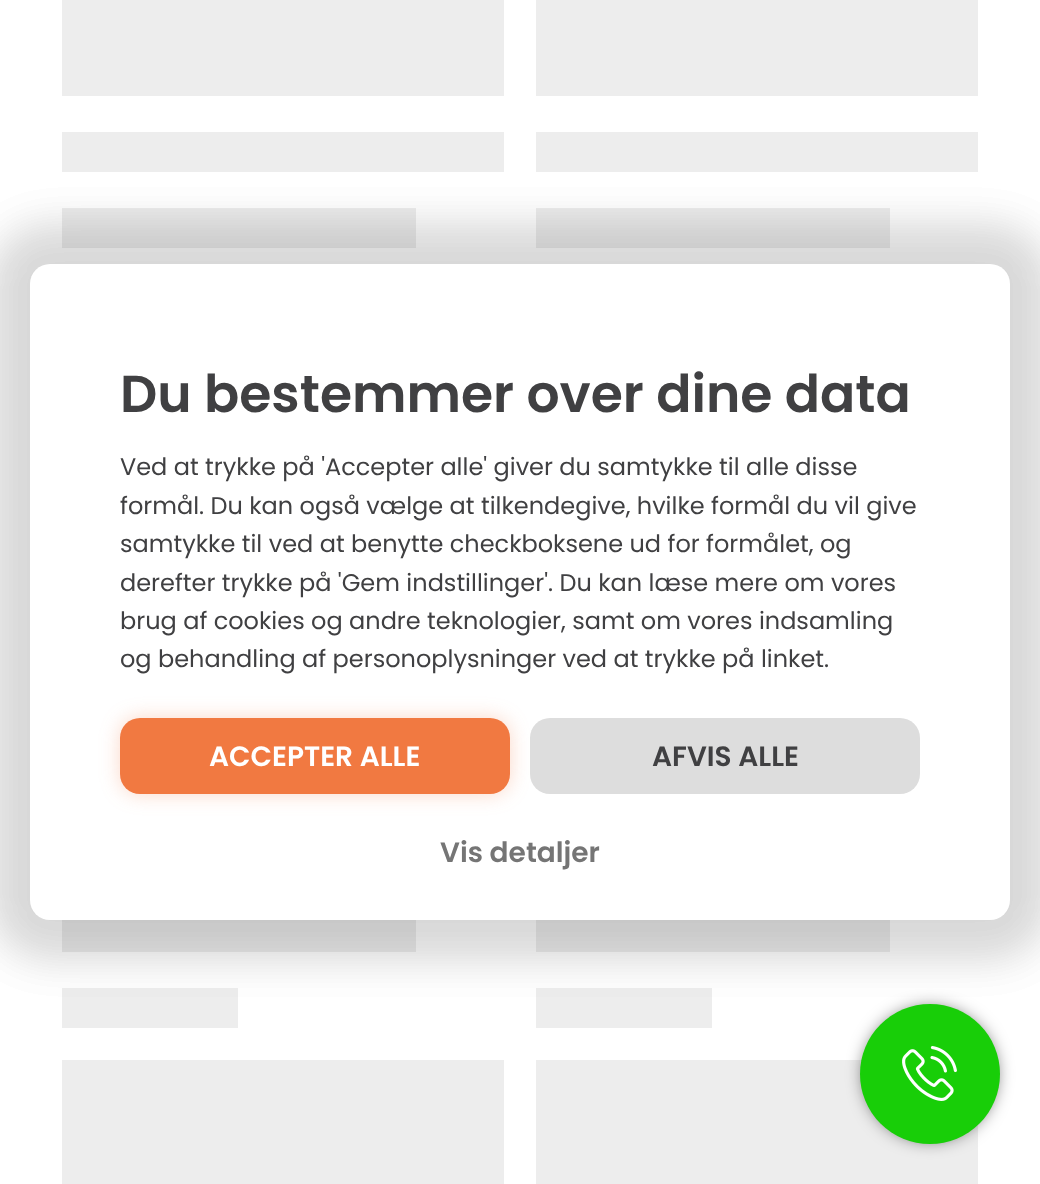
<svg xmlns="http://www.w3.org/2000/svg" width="1040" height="1184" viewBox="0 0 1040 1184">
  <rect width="100%" height="100%" fill="rgb(255,255,255)"/>
  <rect x="62" y="0" width="442" height="96" fill="rgb(237,237,237)"/>
  <rect x="62" y="132" width="442" height="40" fill="rgb(237,237,237)"/>
  <rect x="62" y="208" width="354" height="40" fill="rgb(237,237,237)"/>
  <rect x="536" y="0" width="442" height="96" fill="rgb(237,237,237)"/>
  <rect x="536" y="132" width="442" height="40" fill="rgb(237,237,237)"/>
  <rect x="536" y="208" width="354" height="40" fill="rgb(237,237,237)"/>
  <rect x="62" y="920" width="354" height="32" fill="rgb(237,237,237)"/>
  <rect x="62" y="988" width="176" height="40" fill="rgb(237,237,237)"/>
  <rect x="536" y="920" width="354" height="32" fill="rgb(237,237,237)"/>
  <rect x="536" y="988" width="176" height="40" fill="rgb(237,237,237)"/>
  <rect x="62" y="1060" width="442" height="124" fill="rgb(237,237,237)"/>
  <rect x="536" y="1060" width="442" height="124" fill="rgb(237,237,237)"/>
  <rect x="868" y="1012" width="124" height="124" rx="62" fill="rgb(0,0,0)" filter="blur(10px)"/>
  <circle cx="930" cy="1074" r="70" fill="rgb(24,206,8)"/>
  <rect x="-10" y="224" width="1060" height="736" rx="60" fill="rgba(0,0,0,0.08)" filter="blur(20px)"/>
  <rect x="-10" y="224" width="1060" height="736" rx="60" fill="rgba(0,0,0,0.08)" filter="blur(20px)"/>
  <rect x="30" y="264" width="980" height="656" rx="20" fill="rgb(255,255,255)"/>
  <text x="120" y="412" font-family="Poppins" font-size="52" font-weight="600" fill="rgb(64,64,66)">Du bestemmer over dine data</text>
  <g font-family="Poppins" font-size="24" fill="rgb(64,64,66)">
    <text>
      <tspan x="120" y="475">Ved at trykke på 'Accepter alle' giver du samtykke til alle disse</tspan>
      <tspan x="120" y="514">formål. Du kan også vælge at tilkendegive, hvilke formål du vil give</tspan>
      <tspan x="120" y="552">samtykke til ved at benytte checkboksene ud for formålet, og</tspan>
      <tspan x="120" y="591">derefter trykke på 'Gem indstillinger'. Du kan læse mere om vores</tspan>
      <tspan x="120" y="629">brug af cookies og andre teknologier, samt om vores indsamling</tspan>
      <tspan x="120" y="667">og behandling af personoplysninger ved at trykke på linket.</tspan>
    </text>
  </g>
  <rect x="120" y="718" width="390" height="76" rx="20" fill="rgba(241,121,65,0.29)" filter="blur(10px)"/>
  <rect x="120" y="718" width="390" height="76" rx="20" fill="rgb(241,121,65)"/>
  <text x="209" y="766" font-family="Poppins" font-size="28" font-weight="600" fill="rgb(255,255,255)">ACCEPTER ALLE</text>
  <rect x="530" y="718" width="390" height="76" rx="20" fill="rgb(221,221,221)"/>
  <text x="652" y="766" font-family="Poppins" font-size="28" font-weight="600" fill="rgb(64,64,66)">AFVIS ALLE</text>
  <text x="440" y="862" font-family="Poppins" font-size="28" font-weight="600" fill="rgb(117,117,117)">Vis detaljer</text>
  <image x="902" y="1046" width="55" height="55" href="pic1.png"/>
</svg>
